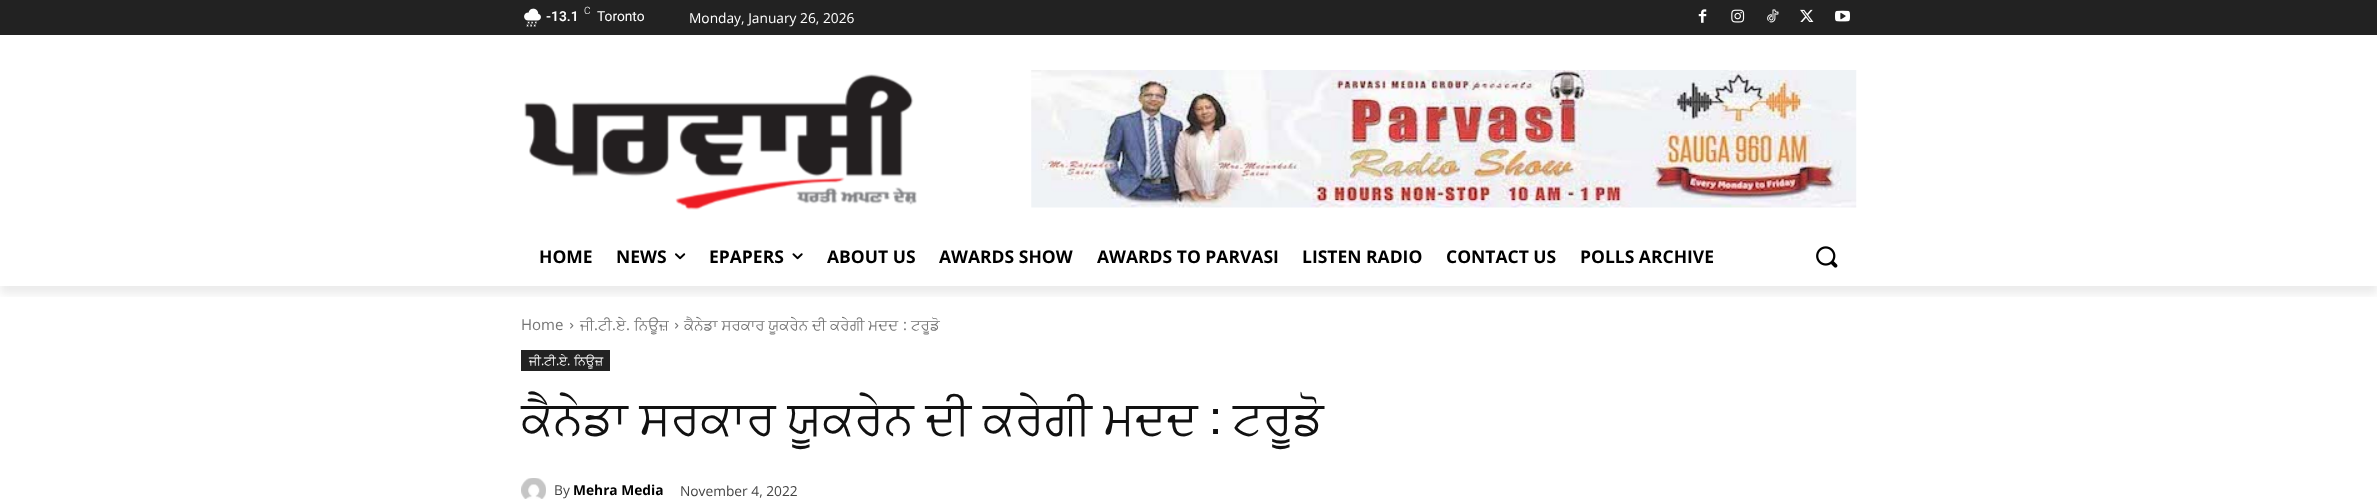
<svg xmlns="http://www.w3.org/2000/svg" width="2377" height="499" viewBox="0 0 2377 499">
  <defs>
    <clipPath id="clip1"><rect x="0" y="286" width="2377" height="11"/></clipPath>
  </defs>
  <rect width="100%" height="100%" fill="rgb(255,255,255)"/>
  <rect x="0" y="0" width="2377" height="35" fill="rgb(34,34,34)"/>
  <image x="524" y="8" width="17" height="19" href="pic1.png"/>
  <image x="1698" y="9" width="9" height="14" href="pic2.png"/>
  <image x="1731" y="9" width="14" height="14" href="pic3.png"/>
  <image x="1767" y="9" width="12" height="14" href="pic4.png"/>
  <image x="1800" y="9" width="14" height="13" href="pic5.png"/>
  <image x="1835" y="10" width="15" height="12" href="pic6.png"/>
  <image x="524" y="74" width="393" height="136" href="pic7.png"/>
  <image x="1031" y="70" width="826" height="138" href="pic8.png"/>
  <g clip-path="url(#clip1)">
    <rect x="0" y="8" width="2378" height="286" fill="rgba(0,0,0,0.08)" filter="blur(5px)"/>
  </g>
  <text x="546" y="21" font-family="Roboto" font-size="13.75" font-weight="600" fill="rgb(255,255,255)">-13.1</text>
  <text x="584" y="14" font-family="Roboto" font-size="10" font-weight="300" fill="rgb(255,255,255)">C</text>
  <text x="597" y="21" font-family="Roboto" font-size="13.75" fill="rgb(255,255,255)">Toronto</text>
  <text x="689" y="23" font-family="Open Sans" font-size="13.75" fill="rgb(255,255,255)">Monday, January 26, 2026</text>
  <g font-family="Open Sans" font-size="17.5" font-weight="bold" fill="rgb(0,0,0)">
    <text x="539" y="263">HOME</text>
    <text x="616" y="263">NEWS</text>
  </g>
  <image x="675" y="253" width="11" height="7" href="pic9.png"/>
  <text x="709" y="263" font-family="Open Sans" font-size="17.5" font-weight="bold" fill="rgb(0,0,0)">EPAPERS</text>
  <image x="792" y="253" width="11" height="7" href="pic10.png"/>
  <g font-family="Open Sans" font-size="17.5" font-weight="bold" fill="rgb(0,0,0)">
    <text x="827" y="263">ABOUT US</text>
    <text x="939" y="263">AWARDS SHOW</text>
    <text x="1097" y="263">AWARDS TO PARVASI</text>
    <text x="1302" y="263">LISTEN RADIO</text>
    <text x="1446" y="263">CONTACT US</text>
    <text x="1580" y="263">POLLS ARCHIVE</text>
  </g>
  <image x="1816" y="246" width="22" height="22" href="pic11.png"/>
  <text x="521" y="330" font-family="Open Sans" font-size="15" fill="rgb(116,116,116)">Home</text>
  <image x="570" y="322" width="4" height="7" href="pic12.png"/>
  <text x="580" y="330" font-family="FreeSans" font-size="15" fill="rgb(116,116,116)">ਜੀ</text>
  <text x="594" y="330" font-family="Open Sans" font-size="15" fill="rgb(116,116,116)">.</text>
  <g font-family="FreeSans" font-size="15" fill="rgb(116,116,116)">
    <text x="598" y="330">ਟੀ ਏ</text>
    <text x="634" y="330">ਨਿਊਜ਼</text>
  </g>
  <image x="675" y="322" width="4" height="7" href="pic12.png"/>
  <text x="684" y="330" font-family="FreeSans" font-size="15" fill="rgb(116,116,116)">ਕੈਨੇਡਾ ਸਰਕਾਰ ਯੂਕਰੇਨ ਦੀ ਕਰੇਗੀ ਮਦਦ</text>
  <text x="903" y="330" font-family="Open Sans" font-size="15" fill="rgb(116,116,116)">:</text>
  <text x="911" y="330" font-family="FreeSans" font-size="15" fill="rgb(116,116,116)">ਟਰੂਡੋ</text>
  <g font-family="Open Sans" font-size="15" fill="rgb(116,116,116)">
    <text x="612" y="330">.</text>
    <text x="626" y="330">.</text>
  </g>
  <rect x="521" y="350" width="89" height="21" fill="rgb(34,34,34)"/>
  <text x="529" y="365" font-family="FreeSans" font-size="12.5" fill="rgb(255,255,255)">ਜੀ</text>
  <text x="541" y="365" font-family="Open Sans" font-size="12.5" fill="rgb(255,255,255)">.</text>
  <text x="544" y="365" font-family="FreeSans" font-size="12.5" fill="rgb(255,255,255)">ਟੀ</text>
  <text x="556" y="365" font-family="Open Sans" font-size="12.5" fill="rgb(255,255,255)">.</text>
  <g font-family="FreeSans" font-size="12.5" fill="rgb(255,255,255)">
    <text x="559" y="365">ਏ</text>
    <text x="574" y="365">ਨਿਊਜ਼</text>
  </g>
  <text x="567" y="365" font-family="Open Sans" font-size="12.5" fill="rgb(255,255,255)">.</text>
  <text x="521" y="434" word-spacing="-0.25" font-family="FreeSans" font-size="47.5" fill="rgb(17,17,17)">ਕੈਨੇਡਾ ਸਰਕਾਰ ਯੂਕਰੇਨ ਦੀ ਕਰੇਗੀ ਮਦਦ : ਟਰੂਡੋ</text>
  <image x="521" y="478" width="25" height="21" href="pic13.png"/>
  <text x="554" y="495" font-family="Open Sans" font-size="13.75" fill="rgb(68,68,68)">By</text>
  <text x="573" y="495" font-family="Open Sans" font-size="13.75" font-weight="bold" fill="rgb(0,0,0)">Mehra Media</text>
  <text x="680" y="496" font-family="Open Sans" font-size="13.75" fill="rgb(68,68,68)">November 4, 2022</text>
</svg>
